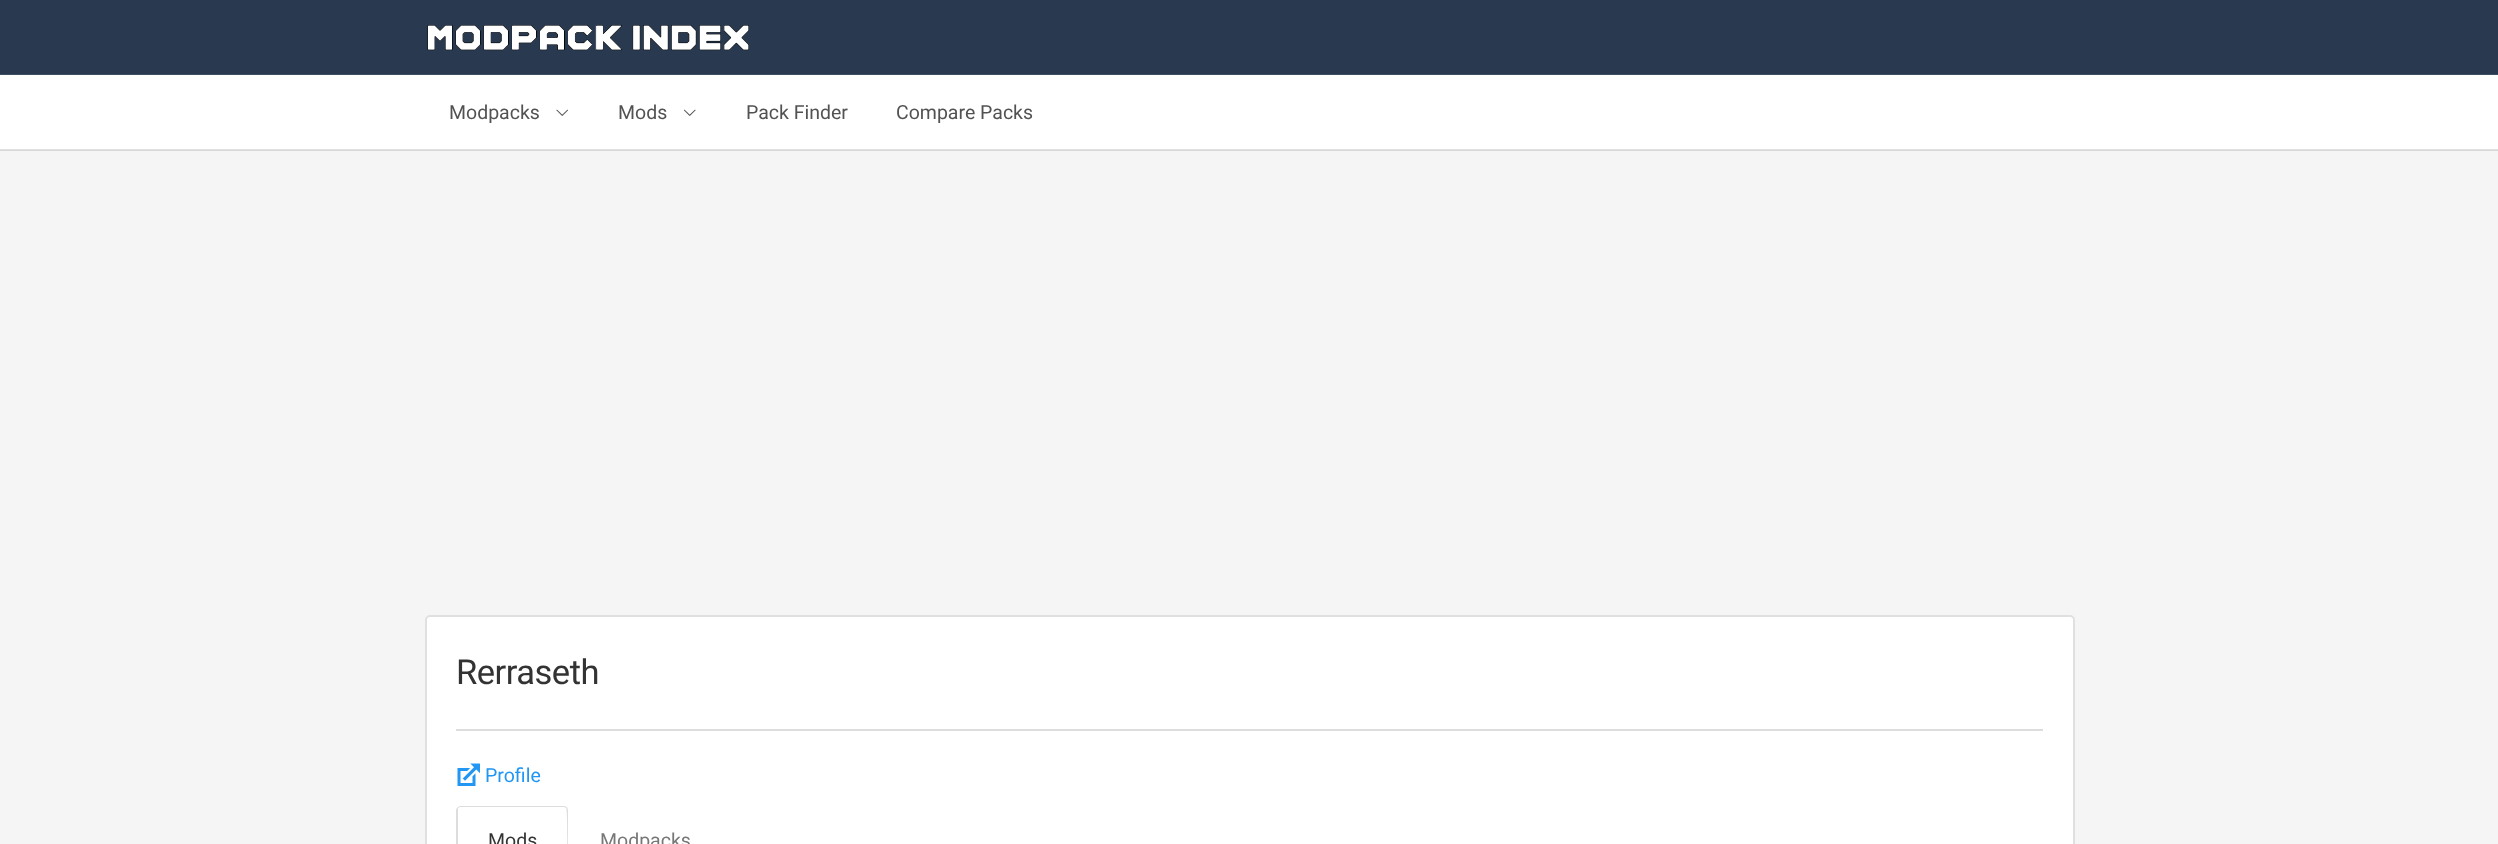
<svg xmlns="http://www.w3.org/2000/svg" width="2498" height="844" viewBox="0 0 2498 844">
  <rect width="100%" height="100%" fill="rgb(245,245,245)"/>
  <rect x="0" y="150" width="2498" height="1" fill="rgb(216,216,216)"/>
  <rect x="0" y="0" width="2498" height="74" fill="rgb(41,58,80)"/>
  <rect x="0" y="74" width="2498" height="1" fill="rgb(62,78,98)"/>
  <image x="427" y="25" width="322" height="26" href="pic1.png"/>
  <rect x="0" y="75" width="2498" height="74" fill="rgb(255,255,255)"/>
  <rect x="0" y="149" width="2498" height="1" fill="rgb(224,224,224)"/>
  <text x="449" y="119" font-family="Roboto" font-size="19.5" fill="rgb(82,82,82)">Modpacks</text>
  <image x="556" y="109" width="12" height="7" href="pic2.png"/>
  <text x="618" y="119" font-family="Roboto" font-size="19.5" fill="rgb(82,82,82)">Mods</text>
  <image x="683" y="109" width="13" height="7" href="pic3.png"/>
  <g font-family="Roboto" font-size="19.5" fill="rgb(82,82,82)">
    <text x="746" y="119">Pack Finder</text>
    <text x="896" y="119">Compare Packs</text>
  </g>
  <rect x="425" y="615" width="1650" height="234" rx="5" fill="rgb(255,255,255)"/>
  <rect x="426" y="616" width="1648" height="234" rx="4" fill="none" stroke="rgba(0,0,0,0.12)" stroke-width="2"/>
  <text x="456" y="684" font-family="Roboto" font-size="34.5" letter-spacing="-0.5" fill="rgb(51,51,51)">Rerraseth</text>
  <rect x="456" y="729" width="1587" height="2" fill="rgb(221,221,221)"/>
  <image x="457" y="763" width="23" height="23" href="pic4.png"/>
  <text x="485" y="782" font-family="Roboto" font-size="19.5" fill="rgb(33,150,243)">Profile</text>
  <path d="M460 806L458 807V808L460 807H564L566 808L567 807L564 806Z" fill="rgb(221,221,221)"/>
  <path d="M568 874V810L567 807L566 808C568 809 567 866 567 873Z" fill="rgb(221,221,221)"/>
  <path d="M456 810V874L458 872V810V808V807C457 808 456 809 456 810Z" fill="rgb(221,221,221)"/>
  <text x="488" y="847" font-family="Roboto" font-size="19.5" fill="rgb(51,51,51)">Mods</text>
  <text x="600" y="847" font-family="Roboto" font-size="19.5" fill="rgb(119,119,119)">Modpacks</text>
</svg>
